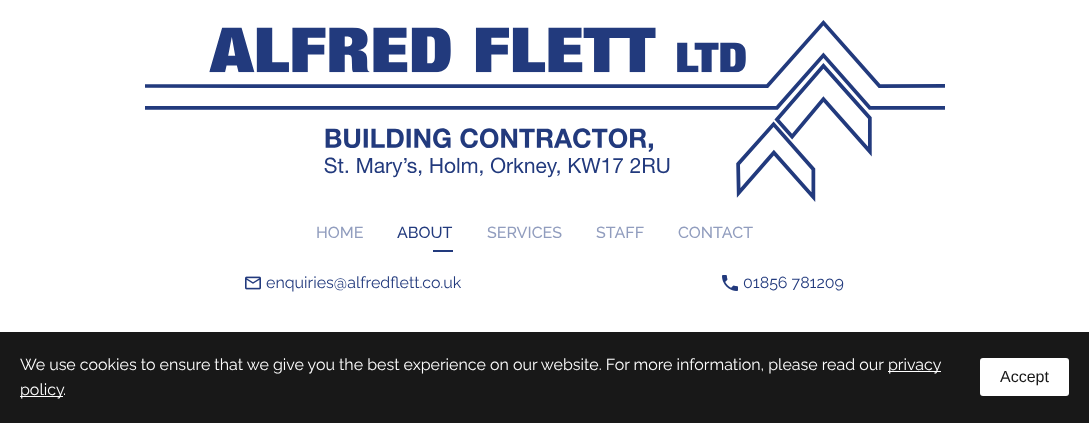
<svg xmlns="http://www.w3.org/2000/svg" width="1089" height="423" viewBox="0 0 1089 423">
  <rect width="100%" height="100%" fill="rgb(255,255,255)"/>
  <image x="145" y="20" width="800" height="182" href="pic1.png"/>
  <text x="316" y="238" font-family="Raleway" font-size="16" font-weight="500" fill="rgb(145,157,190)">HOME</text>
  <text x="397" y="238" font-family="Raleway" font-size="16" font-weight="500" fill="rgb(34,58,125)">ABOUT</text>
  <rect x="433" y="250" width="20" height="2" fill="rgb(34,58,125)"/>
  <g font-family="Raleway" font-size="16" font-weight="500" fill="rgb(145,157,190)">
    <text x="487" y="238">SERVICES</text>
    <text x="596" y="238">STAFF</text>
    <text x="678" y="238">CONTACT</text>
  </g>
  <image x="245" y="276" width="16" height="14" href="pic2.png"/>
  <text x="266" y="288" font-family="Raleway" font-size="16" fill="rgb(34,58,125)">enquiries@alfredflett.co.uk</text>
  <image x="722" y="275" width="16" height="16" href="pic3.png"/>
  <text x="743" y="288" font-family="Raleway" font-size="16" fill="rgb(34,58,125)">01856 781209</text>
  <rect x="0" y="332" width="1089" height="91" fill="rgb(24,24,24)"/>
  <text x="20" y="370" font-family="Raleway" font-size="16" fill="rgb(255,255,255)">We use cookies to ensure that we give you the best experience on our website. For more information, please read our</text>
  <rect x="888" y="371" width="53" height="1" fill="rgb(255,255,255)"/>
  <text x="888" y="370" font-family="Raleway" font-size="16" fill="rgb(255,255,255)">privacy</text>
  <rect x="20" y="396" width="43" height="1" fill="rgb(255,255,255)"/>
  <g font-family="Raleway" font-size="16" fill="rgb(255,255,255)">
    <text x="20" y="395">policy</text>
    <text x="63" y="395">.</text>
  </g>
  <rect x="980" y="358" width="89" height="38" rx="3" fill="rgb(255,255,255)"/>
  <text x="1000" y="382" font-family="Liberation Sans" font-size="16" fill="rgb(24,24,24)">Accept</text>
</svg>
